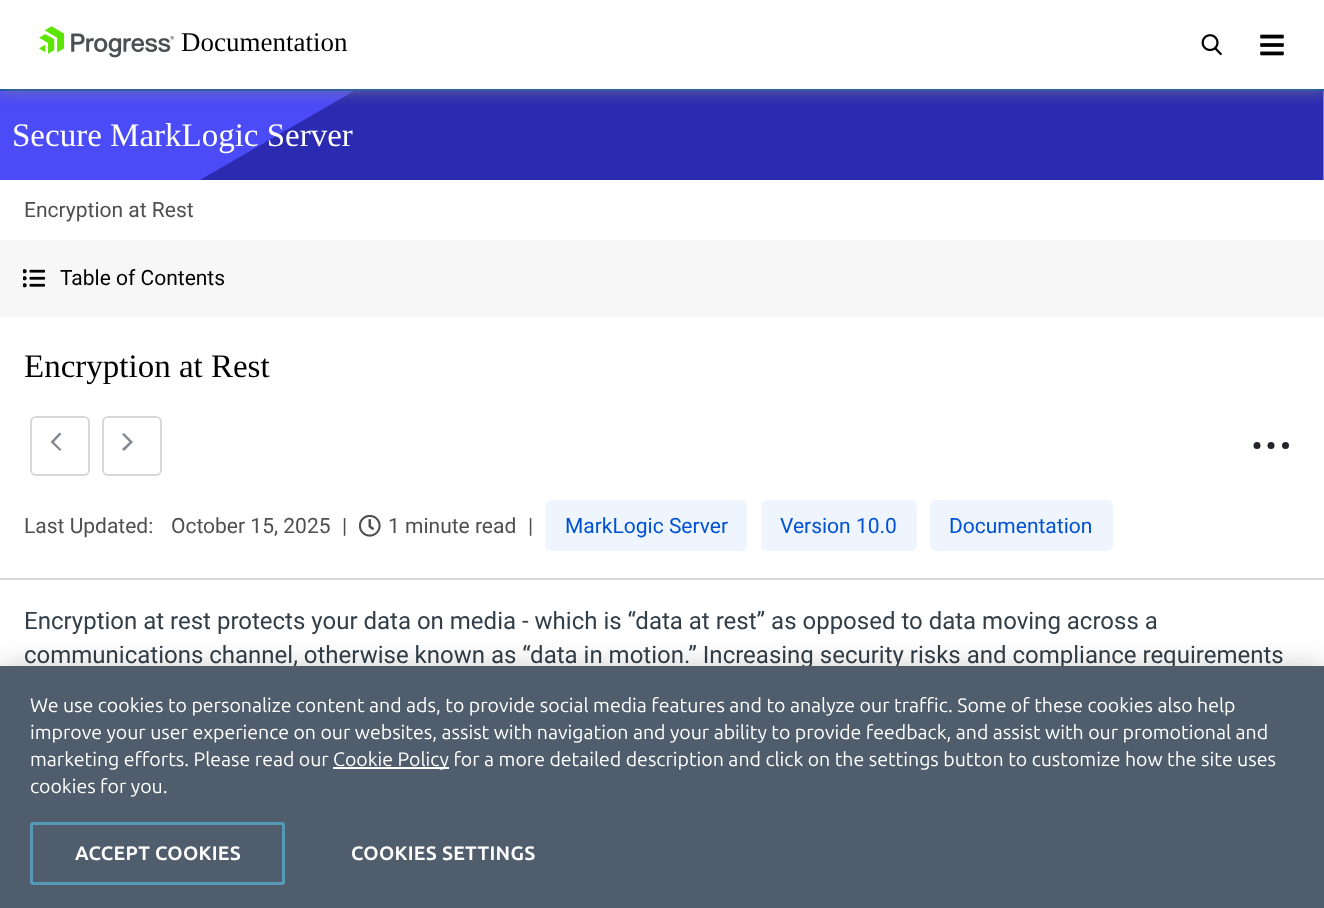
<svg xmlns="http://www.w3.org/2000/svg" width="1324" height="908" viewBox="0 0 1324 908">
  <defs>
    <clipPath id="clip1"><path d="M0 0H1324V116H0ZM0 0H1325V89H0Z" clip-rule="evenodd"/></clipPath>
  </defs>
  <rect width="100%" height="100%" fill="rgb(255,255,255)"/>
  <rect x="0" y="89" width="1324" height="2" fill="rgb(2,77,181)"/>
  <image x="0" y="91" width="1324" height="89" href="pic4.png"/>
  <g clip-path="url(#clip1)">
    <rect x="0" y="3" width="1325" height="89" fill="rgba(131,132,134,0.62)" filter="blur(7.5px)"/>
  </g>
  <image x="39" y="26" width="135" height="32" href="pic1.png"/>
  <text x="181" y="51" font-family="Liberation Serif" font-size="27" fill="rgb(0,0,0)">Documentation</text>
  <image x="1201" y="34" width="21" height="22" href="pic2.png"/>
  <image x="1260" y="34" width="24" height="22" href="pic3.png"/>
  <text x="12" y="146" font-family="Liberation Serif" font-size="33" fill="rgb(255,255,255)">Secure MarkLogic Server</text>
  <text x="24" y="217" font-family="Roboto" font-size="21" fill="rgb(79,79,79)">Encryption at Rest</text>
  <rect x="0" y="240" width="1324" height="77" fill="rgb(247,247,247)"/>
  <image x="23" y="269" width="22" height="19" href="pic5.png"/>
  <text x="60" y="285" font-family="Roboto" font-size="21" fill="rgb(0,0,0)">Table of Contents</text>
  <rect x="0" y="578" width="1324" height="2" fill="rgb(216,216,216)"/>
  <text x="24" y="377" font-family="Liberation Serif" font-size="33" fill="rgb(0,0,0)">Encryption at Rest</text>
  <rect x="31" y="417" width="58" height="58" rx="5" fill="none" stroke="rgb(216,216,216)" stroke-width="2"/>
  <path d="M61.5 434L59.5 432.5L50.5 442L60 451L61.5 449.5L54 442Z" fill="rgb(131,138,145)"/>
  <rect x="103" y="417" width="58" height="58" rx="5" fill="none" stroke="rgb(216,216,216)" stroke-width="2"/>
  <path d="M122 449L124 451L133 442L124 433L122 434.5L129.5 442Z" fill="rgb(131,138,145)"/>
  <circle cx="1257" cy="445.5" r="3.5" fill="rgb(33,37,41)"/>
  <circle cx="1271" cy="445.5" r="3.5" fill="rgb(33,37,41)"/>
  <circle cx="1285.5" cy="445.5" r="3.5" fill="rgb(33,37,41)"/>
  <g font-family="Roboto" font-size="21" fill="rgb(79,79,79)">
    <text x="24" y="533">Last Updated:</text>
    <text x="171" y="533">October 15, 2025</text>
    <text x="342" y="533">|</text>
  </g>
  <image x="359" y="515" width="22" height="22" href="pic6.png"/>
  <g font-family="Roboto" font-size="21" fill="rgb(79,79,79)">
    <text x="388" y="533">1 minute read</text>
    <text x="528" y="533">|</text>
  </g>
  <rect x="545" y="500" width="202" height="51" rx="6" fill="rgb(238,245,255)"/>
  <text x="565" y="533" font-family="Roboto" font-size="21" fill="rgb(0,81,211)">MarkLogic Server</text>
  <rect x="761" y="500" width="156" height="51" rx="6" fill="rgb(238,245,255)"/>
  <text x="780" y="533" font-family="Roboto" font-size="21" fill="rgb(0,81,211)">Version 10.0</text>
  <rect x="930" y="500" width="183" height="51" rx="6" fill="rgb(238,245,255)"/>
  <text x="949" y="533" font-family="Roboto" font-size="21" fill="rgb(0,81,211)">Documentation</text>
  <g font-family="Roboto" font-size="24" fill="rgb(50,62,72)">
    <text>
      <tspan x="24" y="629">Encryption at rest protects your data on media - which is “data at rest” as opposed to data moving across a</tspan>
      <tspan x="24" y="663">communications channel, otherwise known as “data in motion.” Increasing security risks and compliance requirements</tspan>
    </text>
  </g>
  <rect x="0" y="666" width="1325" height="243" fill="rgba(0,0,0,0.2)" filter="blur(13.5px)"/>
  <rect x="0" y="666" width="1324" height="242" fill="rgb(79,93,108)"/>
  <g font-family="Ubuntu" font-size="19.5" fill="rgb(255,255,255)">
    <text>
      <tspan x="30" y="712">We use cookies to personalize content and ads, to provide social media features and to analyze our traffic. Some of these cookies also help</tspan>
      <tspan x="30" y="739">improve your user experience on our websites, assist with navigation and your ability to provide feedback, and assist with our promotional and</tspan>
      <tspan x="30" y="766">marketing efforts. Please read our</tspan>
    </text>
  </g>
  <rect x="333" y="767" width="116" height="2" fill="rgb(255,255,255)"/>
  <g font-family="Ubuntu" font-size="19.5" fill="rgb(255,255,255)">
    <text x="333" y="766">Cookie Policy for a more detailed description and click on the settings button to customize how the site uses</text>
    <text x="30" y="793">cookies for you.</text>
  </g>
  <rect x="31.5" y="823.5" width="252" height="60" rx="1.5" fill="none" stroke="rgb(86,153,182)" stroke-width="3"/>
  <g font-family="Ubuntu" font-size="19.5" font-weight="bold" letter-spacing="0.25" fill="rgb(255,255,255)">
    <text x="75" y="860">ACCEPT COOKIES</text>
    <text x="351" y="860">COOKIES SETTINGS</text>
  </g>
</svg>
